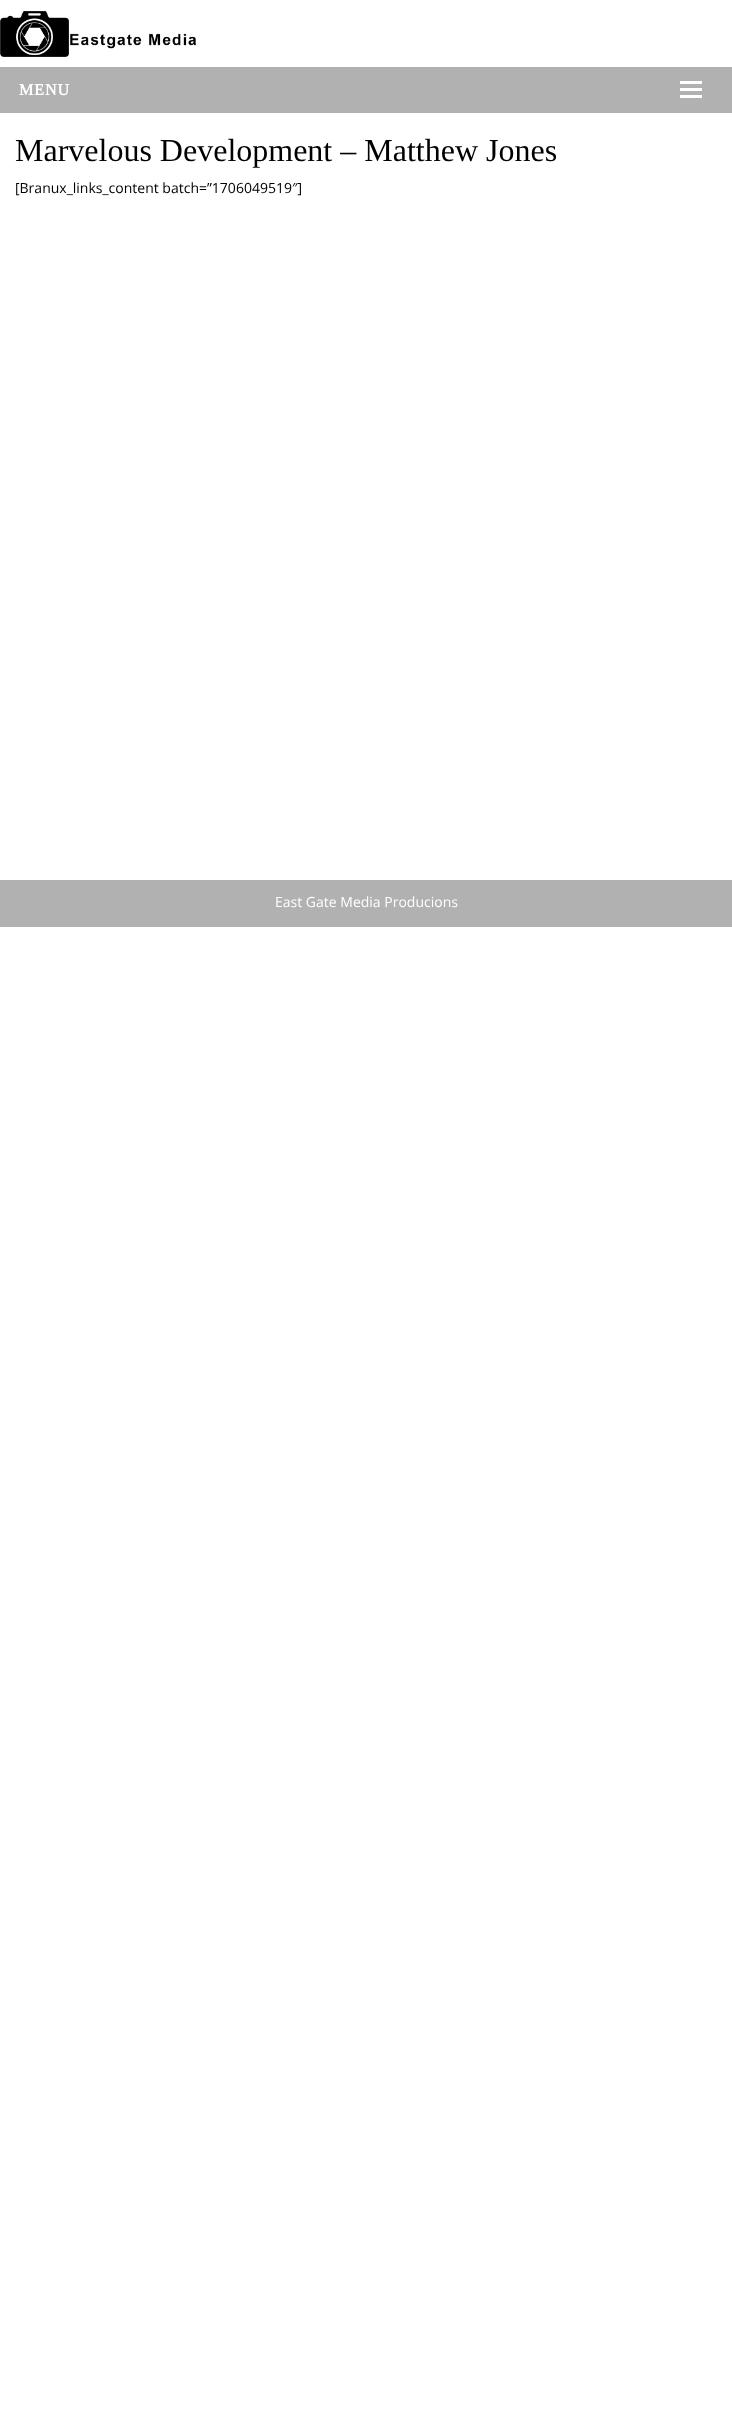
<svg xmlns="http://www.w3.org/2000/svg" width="732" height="2418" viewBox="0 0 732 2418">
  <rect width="100%" height="100%" fill="rgb(255,255,255)"/>
  <image x="0" y="11" width="197" height="46" href="pic1.png"/>
  <rect x="0" y="67" width="732" height="46" fill="rgb(177,177,177)"/>
  <text x="19" y="95" font-family="Tinos" font-size="16" font-weight="bold" letter-spacing="1" fill="rgb(255,255,255)">MENU</text>
  <rect x="680" y="81" width="22" height="3" fill="rgb(255,255,255)"/>
  <rect x="680" y="88" width="22" height="3" fill="rgb(255,255,255)"/>
  <rect x="680" y="95" width="22" height="3" fill="rgb(255,255,255)"/>
  <text x="15" y="161" font-family="Tinos" font-size="32" fill="rgb(0,0,0)">Marvelous Development – Matthew Jones</text>
  <text x="15" y="193" font-family="Open Sans" font-size="14" fill="rgb(0,0,0)">[Branux_links_content batch=”1706049519″]</text>
  <rect x="0" y="880" width="732" height="47" fill="rgb(177,177,177)"/>
  <text x="275" y="907" font-family="Open Sans" font-size="14" fill="rgb(255,255,255)">East Gate Media Producions</text>
</svg>
